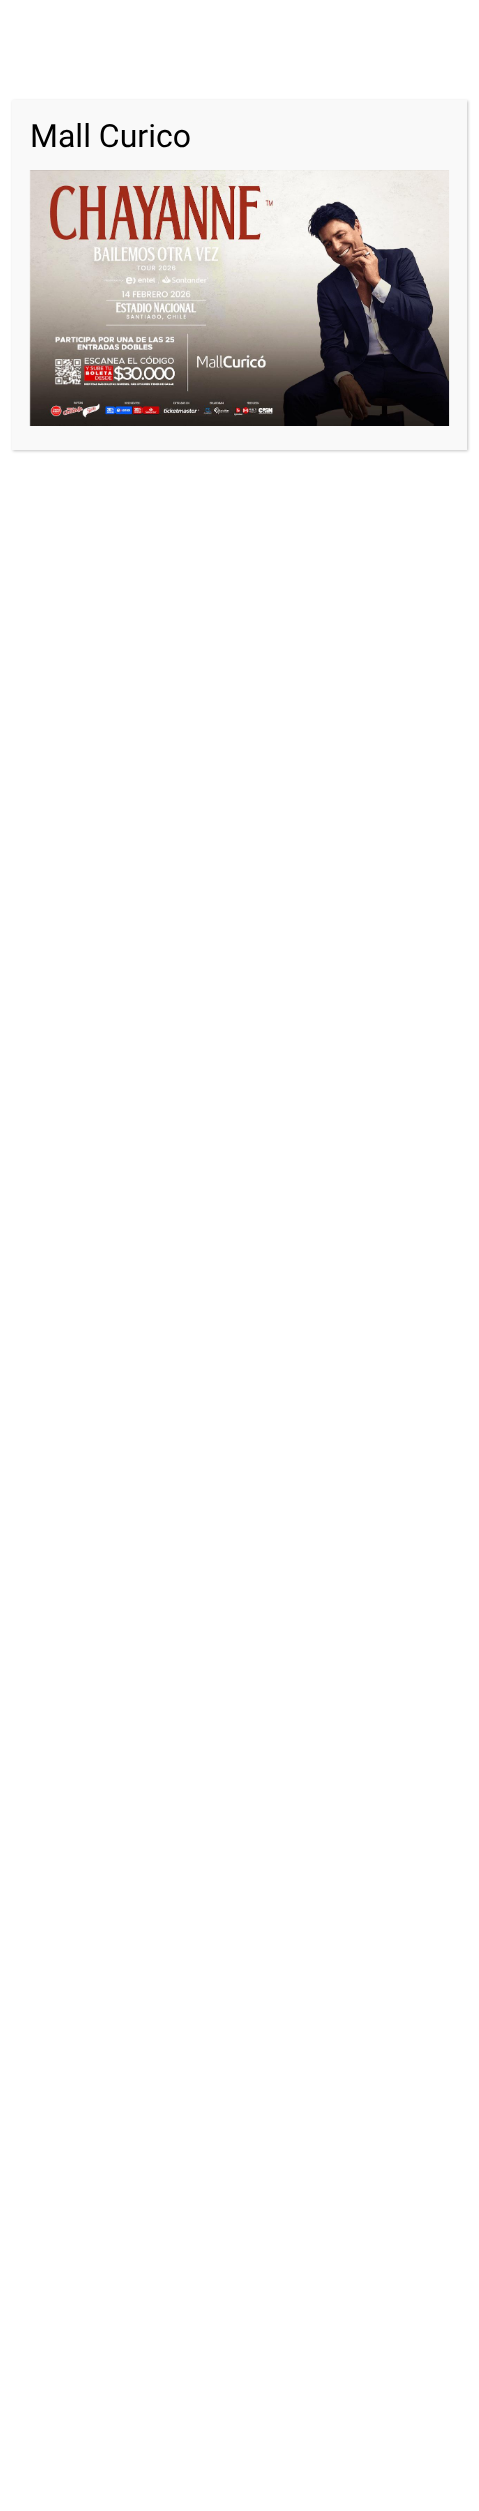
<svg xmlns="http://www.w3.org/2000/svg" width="479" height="2511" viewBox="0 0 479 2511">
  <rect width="100%" height="100%" fill="rgb(255,255,255)"/>
  <rect x="13" y="101" width="455" height="350" fill="rgba(2,2,2,0.23)" filter="blur(1.5px)"/>
  <rect x="12" y="100" width="455" height="350" fill="rgb(249,249,249)"/>
  <text x="30" y="147" font-family="Roboto" font-size="32" fill="rgb(0,0,0)">Mall Curico</text>
  <image x="29" y="170" width="421" height="256" href="pic1.png"/>
</svg>
